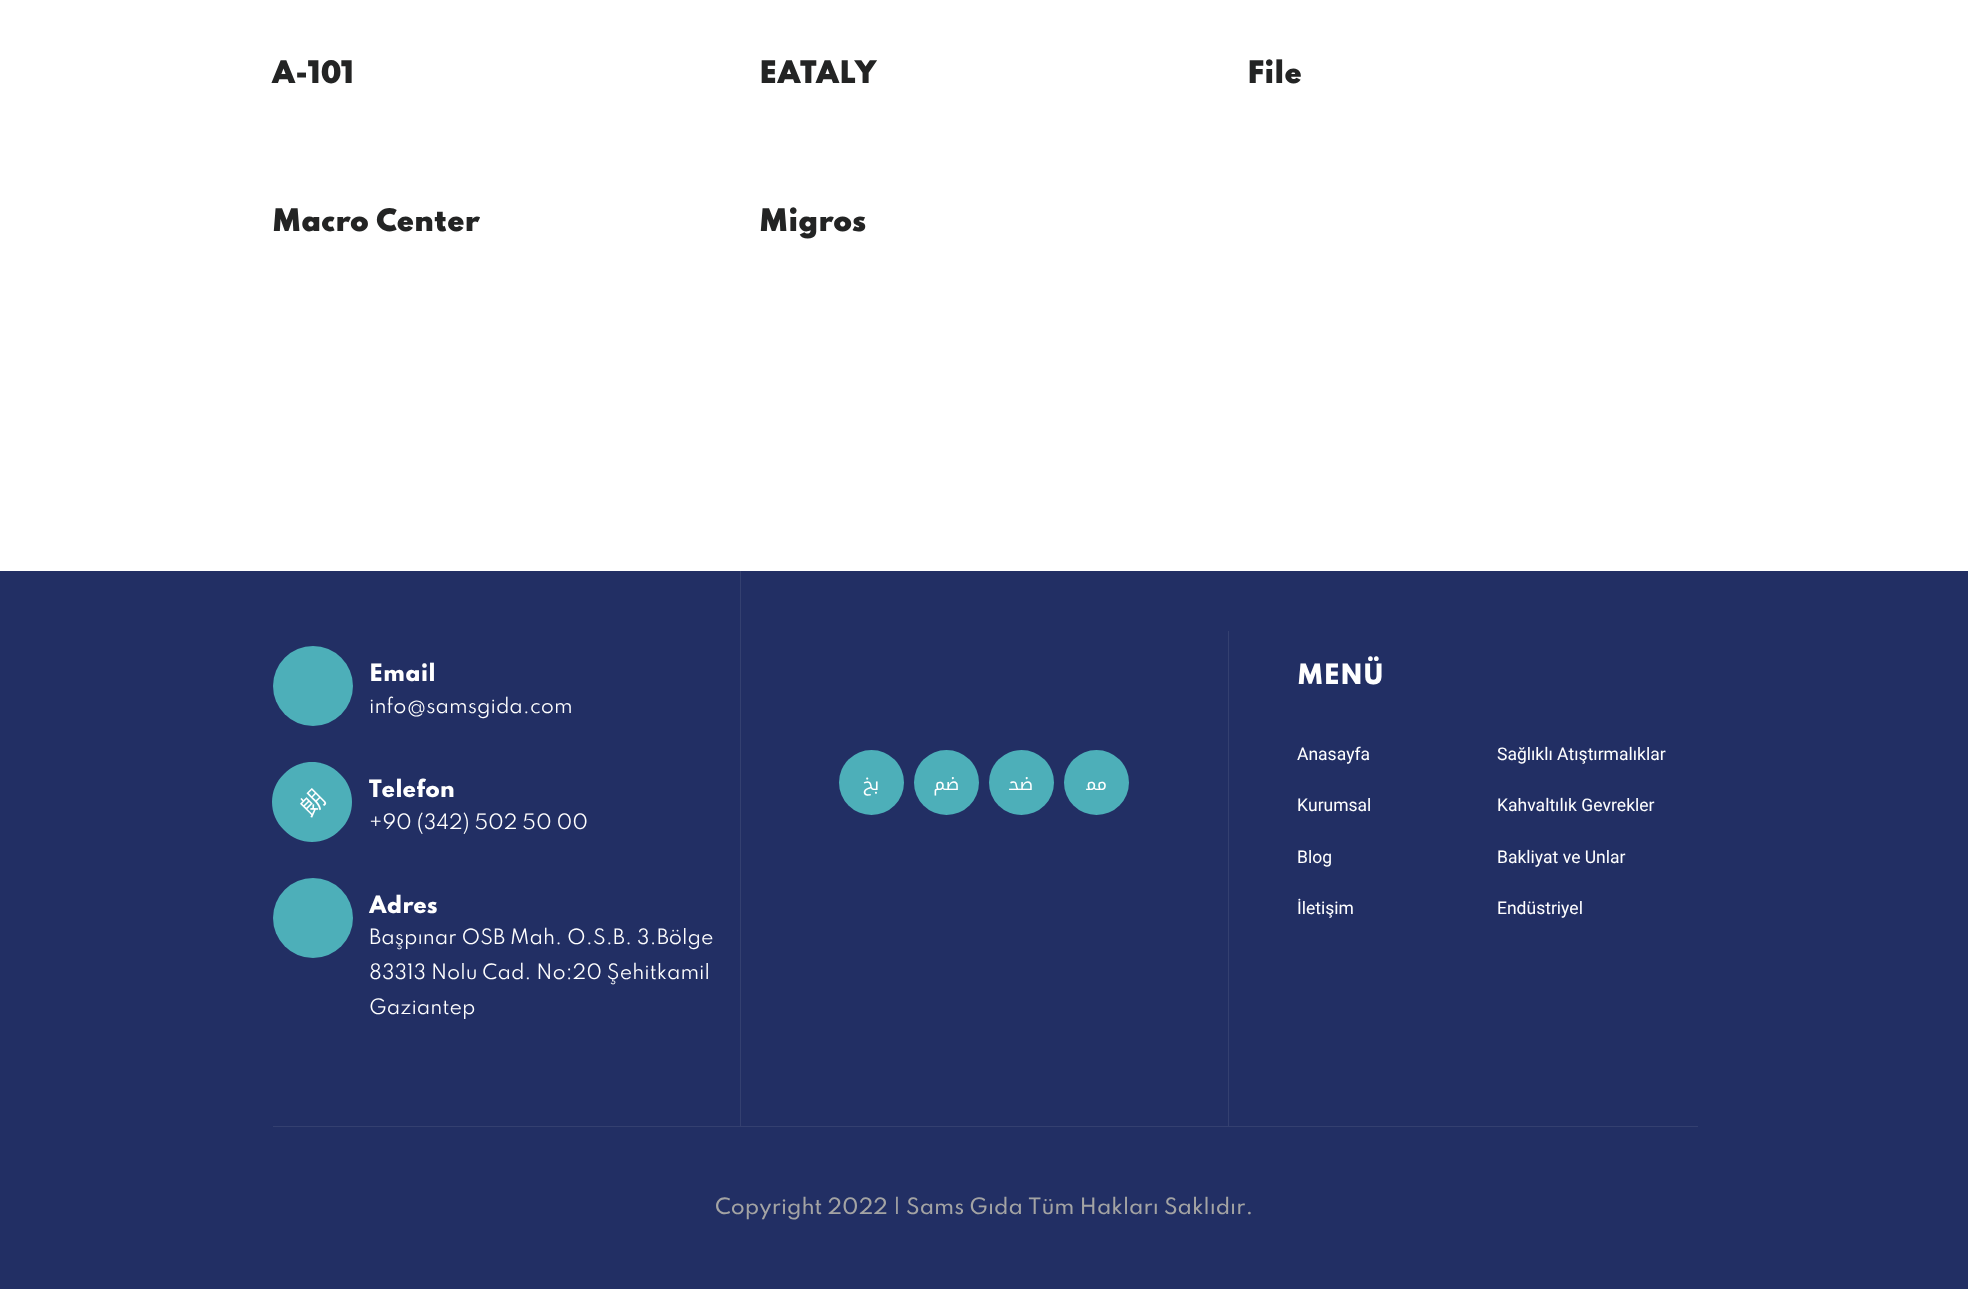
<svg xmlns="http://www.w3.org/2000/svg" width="1968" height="1289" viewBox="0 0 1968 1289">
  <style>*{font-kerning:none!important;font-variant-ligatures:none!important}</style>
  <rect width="100%" height="100%" fill="rgb(255,255,255)"/>
  <g font-family="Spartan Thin" font-size="27.5" font-weight="900" fill="rgb(35,36,36)">
    <text x="272" y="83">A-101</text>
    <text x="759" y="83">EATALY</text>
    <text x="1247" y="83">File</text>
    <text x="272" y="231">Macro Center</text>
    <text x="759" y="231">Migros</text>
  </g>
  <rect x="0" y="571" width="1968" height="718" fill="rgb(34,47,100)"/>
  <rect x="740" y="571" width="1" height="555" fill="rgb(52,64,112)"/>
  <circle cx="313" cy="686" r="40" fill="rgb(77,175,185)"/>
  <text x="369" y="681" font-family="Spartan Thin" font-size="21.25" font-weight="800" fill="rgb(255,255,255)">Email</text>
  <text x="369" y="713" font-family="Spartan Thin" font-size="18.75" fill="rgb(255,255,255)">info@samsgida.com</text>
  <path d="M284 774C299 758 325 758 340 774C356 789 356 815 340 830C325 846 299 846 284 830C268 815 268 789 284 774Z" fill="rgb(77,175,185)"/>
  <text x="309" y="817" transform="rotate(-45 309 817)" font-family="WenQuanYi Zen Hei" font-size="25" font-weight="500" fill="rgb(255,255,255)">朗</text>
  <text x="369" y="797" font-family="Spartan Thin" font-size="21.25" font-weight="800" fill="rgb(255,255,255)">Telefon</text>
  <text x="369" y="829" font-family="Spartan Thin" font-size="18.75" fill="rgb(255,255,255)">+90 (342) 502 50 00</text>
  <circle cx="313" cy="918" r="40" fill="rgb(77,175,185)"/>
  <text x="369" y="913" font-family="Spartan Thin" font-size="21.25" font-weight="800" fill="rgb(255,255,255)">Adres</text>
  <g font-family="Spartan Thin" font-size="18.75" fill="rgb(255,255,255)">
    <text>
      <tspan x="369" y="944">Başpınar OSB Mah. O.S.B. 3.Bölge</tspan>
      <tspan x="369" y="979">83313 Nolu Cad. No:20 Şehitkamil</tspan>
      <tspan x="369" y="1014">Gaziantep</tspan>
    </text>
  </g>
  <rect x="1228" y="631" width="1" height="495" fill="rgb(52,64,112)"/>
  <circle cx="871.5" cy="782.5" r="32.5" fill="rgb(77,175,185)"/>
  <text x="879" y="790" font-family="Noto Kufi Arabic" font-size="17.5" direction="rtl" fill="rgb(255,255,255)">ﰇ</text>
  <circle cx="946.5" cy="782.5" r="32.5" fill="rgb(77,175,185)"/>
  <text x="959" y="790" font-family="Noto Kufi Arabic" font-size="17.5" direction="rtl" fill="rgb(255,255,255)">ﰥ</text>
  <circle cx="1021.5" cy="782.5" r="32.5" fill="rgb(77,175,185)"/>
  <text x="1033" y="790" font-family="Noto Kufi Arabic" font-size="17.5" direction="rtl" fill="rgb(255,255,255)">ﲵ</text>
  <circle cx="1096.5" cy="782.5" r="32.5" fill="rgb(77,175,185)"/>
  <text x="1107" y="790" font-family="Noto Kufi Arabic" font-size="17.5" direction="rtl" fill="rgb(255,255,255)">ﳑ</text>
  <text x="1297" y="684" font-family="Spartan Thin" font-size="25" font-weight="800" fill="rgb(255,255,255)">MENÜ</text>
  <g font-family="Roboto" font-size="17.5" fill="rgb(255,255,255)">
    <text x="1297" y="760">Anasayfa</text>
    <text x="1297" y="811">Kurumsal</text>
    <text x="1297" y="863">Blog</text>
    <text x="1297" y="914">İletişim</text>
    <text x="1497" y="760">Sağlıklı Atıştırmalıklar</text>
    <text x="1497" y="811">Kahvaltılık Gevrekler</text>
    <text x="1497" y="863">Bakliyat ve Unlar</text>
    <text x="1497" y="914">Endüstriyel</text>
  </g>
  <rect x="273" y="1126" width="1425" height="1" fill="rgb(52,64,112)"/>
  <text x="715" y="1214" font-family="Spartan Thin" font-size="20" font-weight="500" fill="rgb(164,164,164)">Copyright 2022 | Sams Gıda Tüm Hakları Saklıdır.</text>
</svg>
